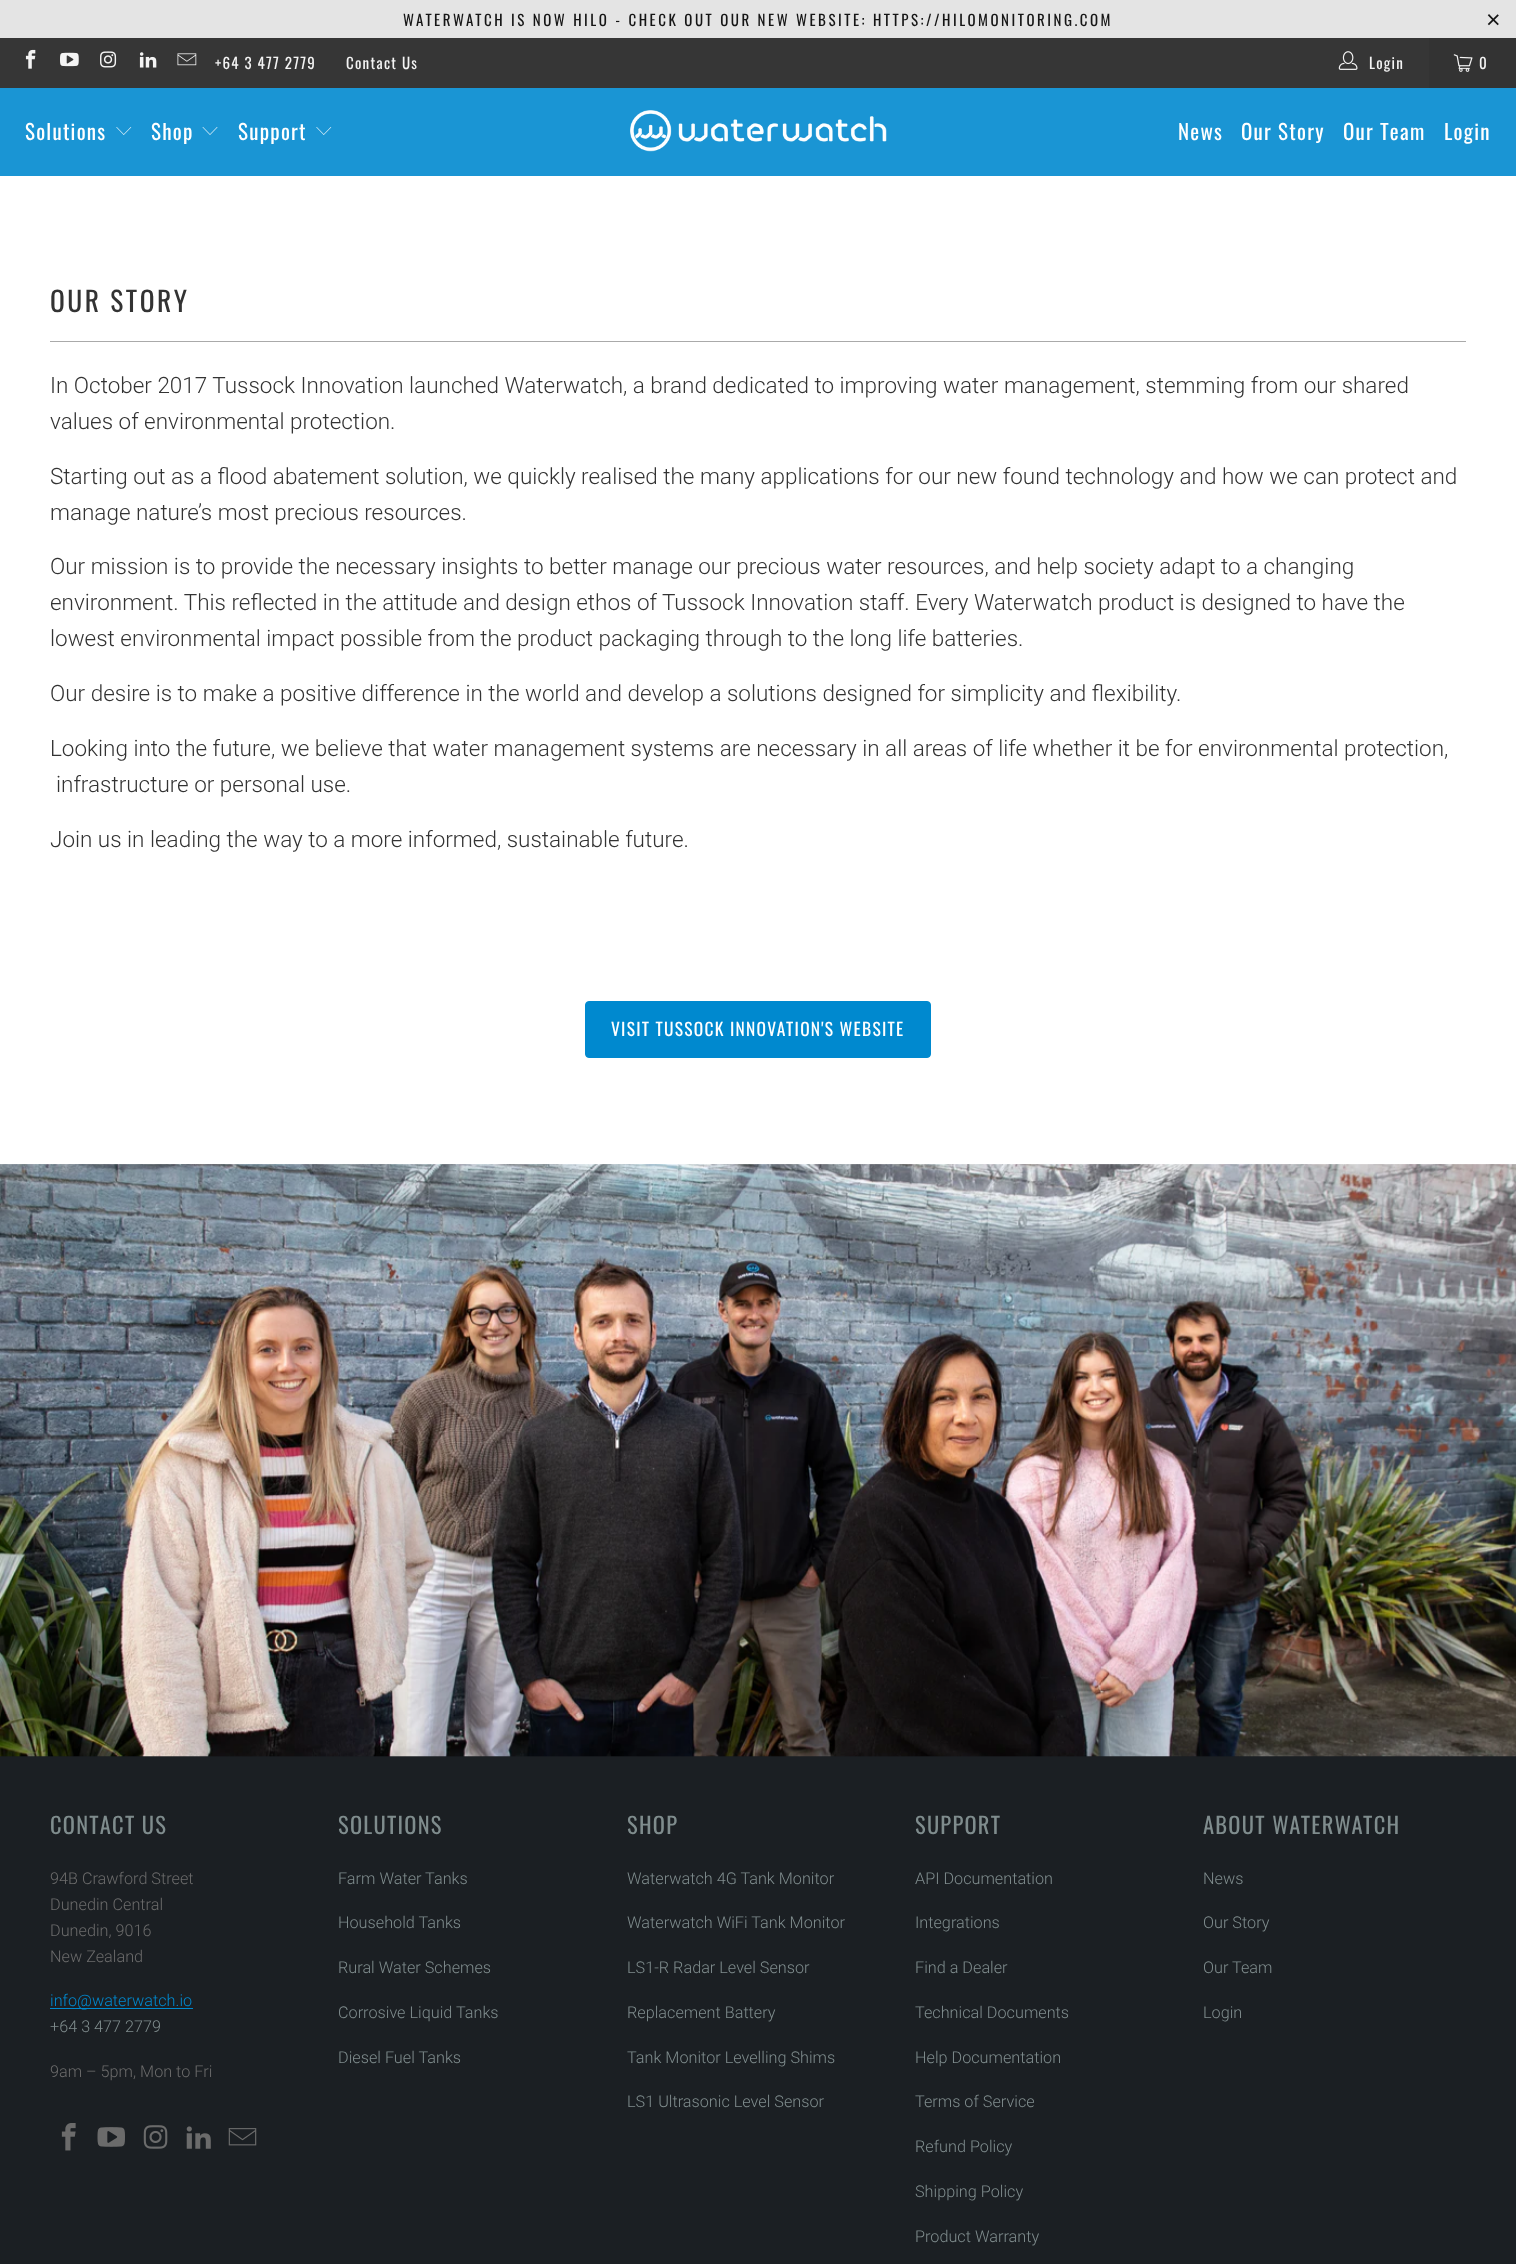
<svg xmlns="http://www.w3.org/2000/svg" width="1516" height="2264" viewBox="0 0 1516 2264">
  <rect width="100%" height="100%" fill="rgb(255,255,255)"/>
  <rect x="0" y="0" width="1516" height="38" fill="rgb(228,228,228)"/>
  <text x="403" y="26" font-family="Oswald" font-size="15" letter-spacing="2.5" fill="rgb(21,21,21)">WATERWATCH IS NOW HILO - CHECK OUT OUR NEW WEBSITE: HTTPS://HILOMONITORING.COM</text>
  <text x="1486" y="28" font-family="Liberation Sans" font-size="25" letter-spacing="2.5" fill="rgb(21,21,21)">×</text>
  <rect x="0" y="38" width="1429" height="50" fill="rgb(54,54,54)"/>
  <image x="25" y="49" width="11" height="20" href="pic1.png"/>
  <image x="60" y="52" width="19" height="15" href="pic2.png"/>
  <image x="100" y="51" width="17" height="17" href="pic3.png"/>
  <image x="139" y="52" width="18" height="16" href="pic4.png"/>
  <image x="177" y="53" width="20" height="13" href="pic5.png"/>
  <g font-family="Oswald" font-size="15" letter-spacing="1.25" fill="rgb(244,244,244)">
    <text x="215" y="69">+64 3 477 2779</text>
    <text x="346" y="69">Contact Us</text>
  </g>
  <image x="1338" y="51" width="20" height="19" href="pic6.png"/>
  <text x="1369" y="69" font-family="Oswald" font-size="15" letter-spacing="1.25" fill="rgb(244,244,244)">Login</text>
  <rect x="1429" y="38" width="87" height="50" fill="rgb(51,51,51)"/>
  <image x="1453" y="54" width="20" height="18" href="pic7.png"/>
  <text x="1479" y="69" font-family="Oswald" font-size="15" letter-spacing="1.25" fill="rgb(244,244,244)">0</text>
  <rect x="0" y="88" width="1516" height="88" fill="rgb(26,149,212)"/>
  <text x="25" y="140" font-family="Oswald" font-size="21" letter-spacing="1.25" fill="rgb(255,255,255)">Solutions</text>
  <image x="116" y="127" width="16" height="8" href="pic8.png"/>
  <text x="151" y="140" font-family="Oswald" font-size="21" letter-spacing="1.25" fill="rgb(255,255,255)">Shop</text>
  <image x="202" y="127" width="16" height="8" href="pic9.png"/>
  <text x="238" y="140" font-family="Oswald" font-size="21" letter-spacing="1.25" fill="rgb(255,255,255)">Support</text>
  <image x="316" y="127" width="16" height="8" href="pic8.png"/>
  <image x="630" y="110" width="257" height="42" href="pic10.png"/>
  <g font-family="Oswald" font-size="21" letter-spacing="1.25" fill="rgb(255,255,255)">
    <text x="1178" y="140">News</text>
    <text x="1241" y="140">Our Story</text>
    <text x="1343" y="140">Our Team</text>
    <text x="1444" y="140">Login</text>
  </g>
  <text x="50" y="312" font-family="Oswald" font-size="27.5" letter-spacing="2.5" fill="rgb(51,51,51)">OUR STORY</text>
  <rect x="50" y="341" width="1416" height="1" fill="rgb(170,170,170)"/>
  <g font-family="Roboto" font-size="22.5" font-weight="300" fill="rgb(51,51,51)">
    <text>
      <tspan x="50" y="393">In October 2017 Tussock Innovation launched Waterwatch, a brand dedicated to improving water management, stemming from our shared</tspan>
      <tspan x="50" y="429">values of environmental protection.</tspan>
    </text>
    <text>
      <tspan x="50" y="484">Starting out as a flood abatement solution, we quickly realised the many applications for our new found technology and how we can protect and</tspan>
      <tspan x="50" y="520">manage nature’s most precious resources.</tspan>
    </text>
    <text>
      <tspan x="50" y="574">Our mission is to provide the necessary insights to better manage our precious water resources, and help society adapt to a changing</tspan>
      <tspan x="50" y="610">environment. This reflected in the attitude and design ethos of Tussock Innovation staff. Every Waterwatch product is designed to have the</tspan>
      <tspan x="50" y="646">lowest environmental impact possible from the product packaging through to the long life batteries.</tspan>
    </text>
    <text x="50" y="701">Our desire is to make a positive difference in the world and develop a solutions designed for simplicity and flexibility.</text>
    <text x="50" y="756">Looking into the future, we believe that water management systems are necessary in all areas of life whether it be for environmental protection,</text>
    <text x="56" y="792">infrastructure or personal use.</text>
    <text x="50" y="847">Join us in leading the way to a more informed, sustainable future.</text>
  </g>
  <rect x="585.5" y="1001.5" width="345" height="56" rx="3.5" fill="rgb(0,137,207)" stroke="rgb(0,137,207)"/>
  <text x="611" y="1036" font-family="Oswald" font-size="17.5" letter-spacing="1.25" fill="rgb(255,255,255)">VISIT TUSSOCK INNOVATION'S WEBSITE</text>
  <rect x="0" y="1756" width="1516" height="508" fill="rgb(27,31,35)"/>
  <image x="0" y="1164" width="1516" height="593" href="pic11.png"/>
  <text x="50" y="1834" font-family="Oswald" font-size="22.5" letter-spacing="1.25" fill="rgb(127,140,141)">CONTACT US</text>
  <g font-family="Roboto" font-size="16.25" font-weight="300" fill="rgb(107,107,107)">
    <text>
      <tspan x="50" y="1884">94B Crawford Street</tspan>
      <tspan x="50" y="1910">Dunedin Central</tspan>
      <tspan x="50" y="1936">Dunedin, 9016</tspan>
      <tspan x="50" y="1962">New Zealand</tspan>
    </text>
  </g>
  <rect x="50" y="2008" width="143" height="1" fill="rgb(0,137,207)"/>
  <text x="50" y="2006" font-family="Roboto" font-size="16.25" font-weight="300" fill="rgb(0,137,207)">info@waterwatch.io</text>
  <text x="50" y="2032" font-family="Roboto" font-size="16.25" font-weight="300" fill="rgb(127,140,141)">+64 3 477 2779</text>
  <text x="50" y="2077" font-family="Roboto" font-size="16.25" font-weight="300" fill="rgb(107,107,107)">9am – 5pm, Mon to Fri</text>
  <image x="61" y="2123" width="15" height="28" href="pic12.png"/>
  <image x="97" y="2127" width="28" height="20" href="pic13.png"/>
  <image x="143" y="2125" width="25" height="24" href="pic14.png"/>
  <image x="186" y="2126" width="25" height="23" href="pic15.png"/>
  <image x="228" y="2128" width="29" height="18" href="pic16.png"/>
  <text x="338" y="1834" font-family="Oswald" font-size="22.5" letter-spacing="1.25" fill="rgb(127,140,141)">SOLUTIONS</text>
  <g font-family="Roboto" font-size="16.25" font-weight="300" fill="rgb(127,140,141)">
    <text x="338" y="1884">Farm Water Tanks</text>
    <text x="338" y="1928">Household Tanks</text>
    <text x="338" y="1973">Rural Water Schemes</text>
    <text x="338" y="2018">Corrosive Liquid Tanks</text>
    <text x="338" y="2063">Diesel Fuel Tanks</text>
  </g>
  <text x="627" y="1834" font-family="Oswald" font-size="22.5" letter-spacing="1.25" fill="rgb(127,140,141)">SHOP</text>
  <g font-family="Roboto" font-size="16.25" font-weight="300" fill="rgb(127,140,141)">
    <text x="627" y="1884">Waterwatch 4G Tank Monitor</text>
    <text x="627" y="1928">Waterwatch WiFi Tank Monitor</text>
    <text x="627" y="1973">LS1-R Radar Level Sensor</text>
    <text x="627" y="2018">Replacement Battery</text>
    <text x="627" y="2063">Tank Monitor Levelling Shims</text>
    <text x="627" y="2107">LS1 Ultrasonic Level Sensor</text>
  </g>
  <text x="915" y="1834" font-family="Oswald" font-size="22.5" letter-spacing="1.25" fill="rgb(127,140,141)">SUPPORT</text>
  <g font-family="Roboto" font-size="16.25" font-weight="300" fill="rgb(127,140,141)">
    <text x="915" y="1884">API Documentation</text>
    <text x="915" y="1928">Integrations</text>
    <text x="915" y="1973">Find a Dealer</text>
    <text x="915" y="2018">Technical Documents</text>
    <text x="915" y="2063">Help Documentation</text>
    <text x="915" y="2107">Terms of Service</text>
    <text x="915" y="2152">Refund Policy</text>
    <text x="915" y="2197">Shipping Policy</text>
    <text x="915" y="2242">Product Warranty</text>
  </g>
  <text x="1203" y="1834" font-family="Oswald" font-size="22.5" letter-spacing="1.25" fill="rgb(127,140,141)">ABOUT WATERWATCH</text>
  <g font-family="Roboto" font-size="16.25" font-weight="300" fill="rgb(127,140,141)">
    <text x="1203" y="1884">News</text>
    <text x="1203" y="1928">Our Story</text>
    <text x="1203" y="1973">Our Team</text>
    <text x="1203" y="2018">Login</text>
  </g>
</svg>
